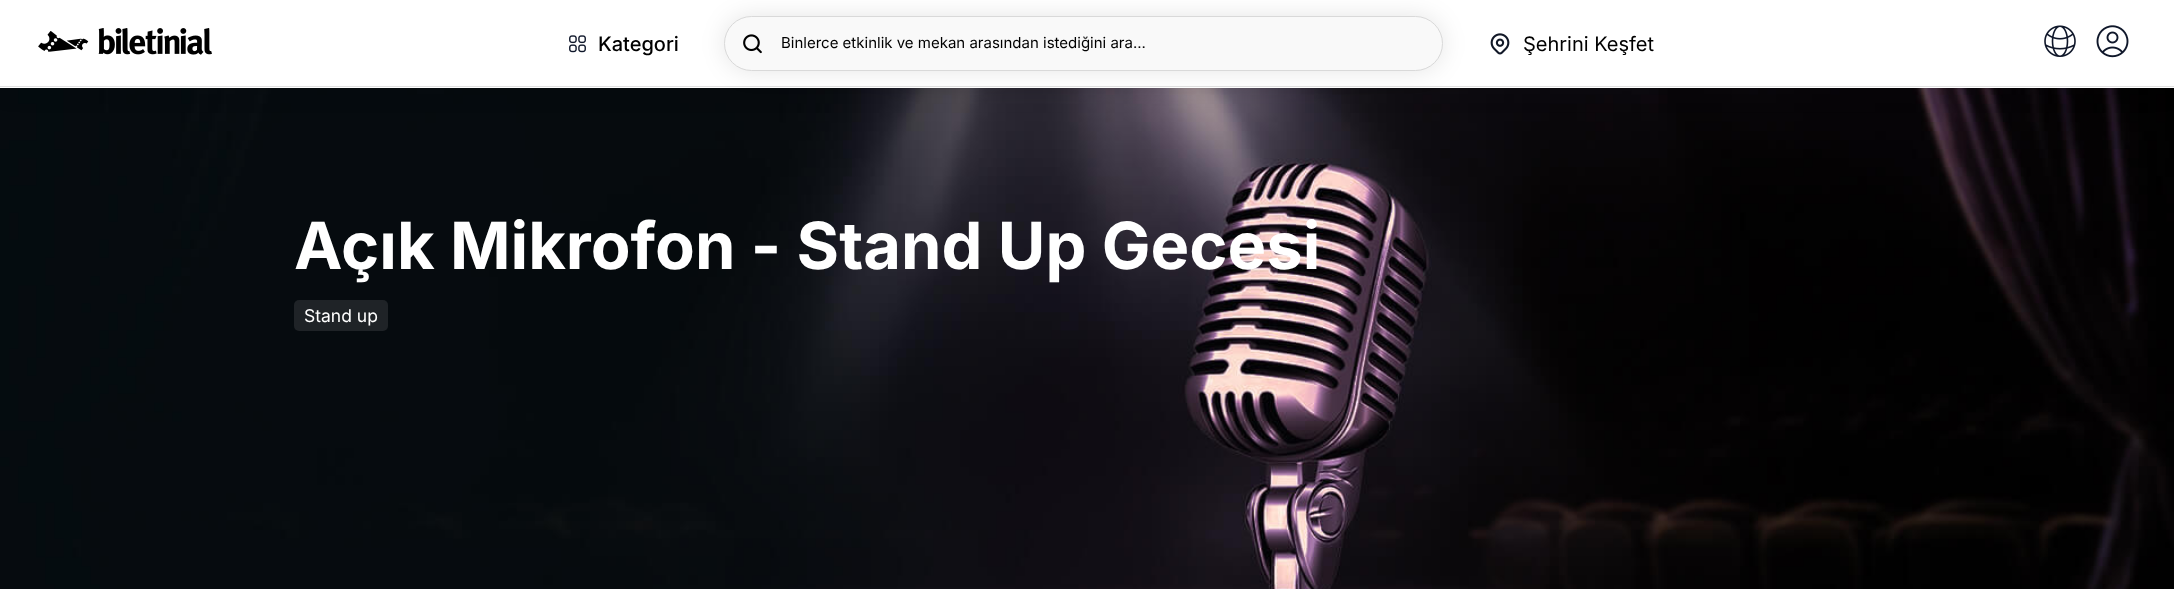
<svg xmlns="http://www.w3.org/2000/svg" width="2174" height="589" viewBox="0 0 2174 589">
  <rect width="100%" height="100%" fill="rgb(255,255,255)"/>
  <image x="0" y="88" width="2174" height="501" href="pic7.png"/>
  <rect x="0" y="0" width="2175" height="88" fill="rgba(0,0,0,0.15)" filter="blur(12.5px)"/>
  <rect x="0" y="0" width="2174" height="88" fill="rgb(255,255,255)"/>
  <rect x="0" y="86" width="2174" height="1" fill="rgb(225,225,225)"/>
  <image x="38" y="28" width="174" height="27" href="pic1.png"/>
  <image x="569" y="35" width="17" height="18" href="pic2.png"/>
  <text x="598" y="51" font-family="Inter" font-size="20" font-weight="500" fill="rgb(0,0,0)">Kategori</text>
  <rect x="724" y="16" width="719" height="55" rx="27.5" fill="rgba(0,0,0,0.1)" filter="blur(12.5px)"/>
  <rect x="724.5" y="16.5" width="718" height="54" rx="27" fill="rgb(249,249,249)" stroke="rgb(217,217,217)"/>
  <image x="743" y="34" width="19" height="20" href="pic3.png"/>
  <text x="781" y="48" font-family="Inter" font-size="15" fill="rgb(0,0,0)">Binlerce etkinlik ve mekan arasından istediğini ara...</text>
  <image x="1490" y="33" width="20" height="22" href="pic4.png"/>
  <text x="1523" y="51" font-family="Inter" font-size="20" fill="rgb(0,0,0)">Şehrini Keşfet</text>
  <image x="2044" y="25" width="32" height="32" href="pic5.png"/>
  <image x="2096" y="25" width="33" height="33" href="pic6.png"/>
  <text x="294" y="269" font-family="Inter" font-size="65" font-weight="bold" fill="rgb(255,255,255)">Açık Mikrofon - Stand Up Gecesi</text>
  <rect x="294" y="300" width="94" height="31" rx="5" fill="rgb(31,35,39)"/>
  <text x="304" y="322" font-family="Inter" font-size="17.5" fill="rgb(255,255,255)">Stand up</text>
</svg>
